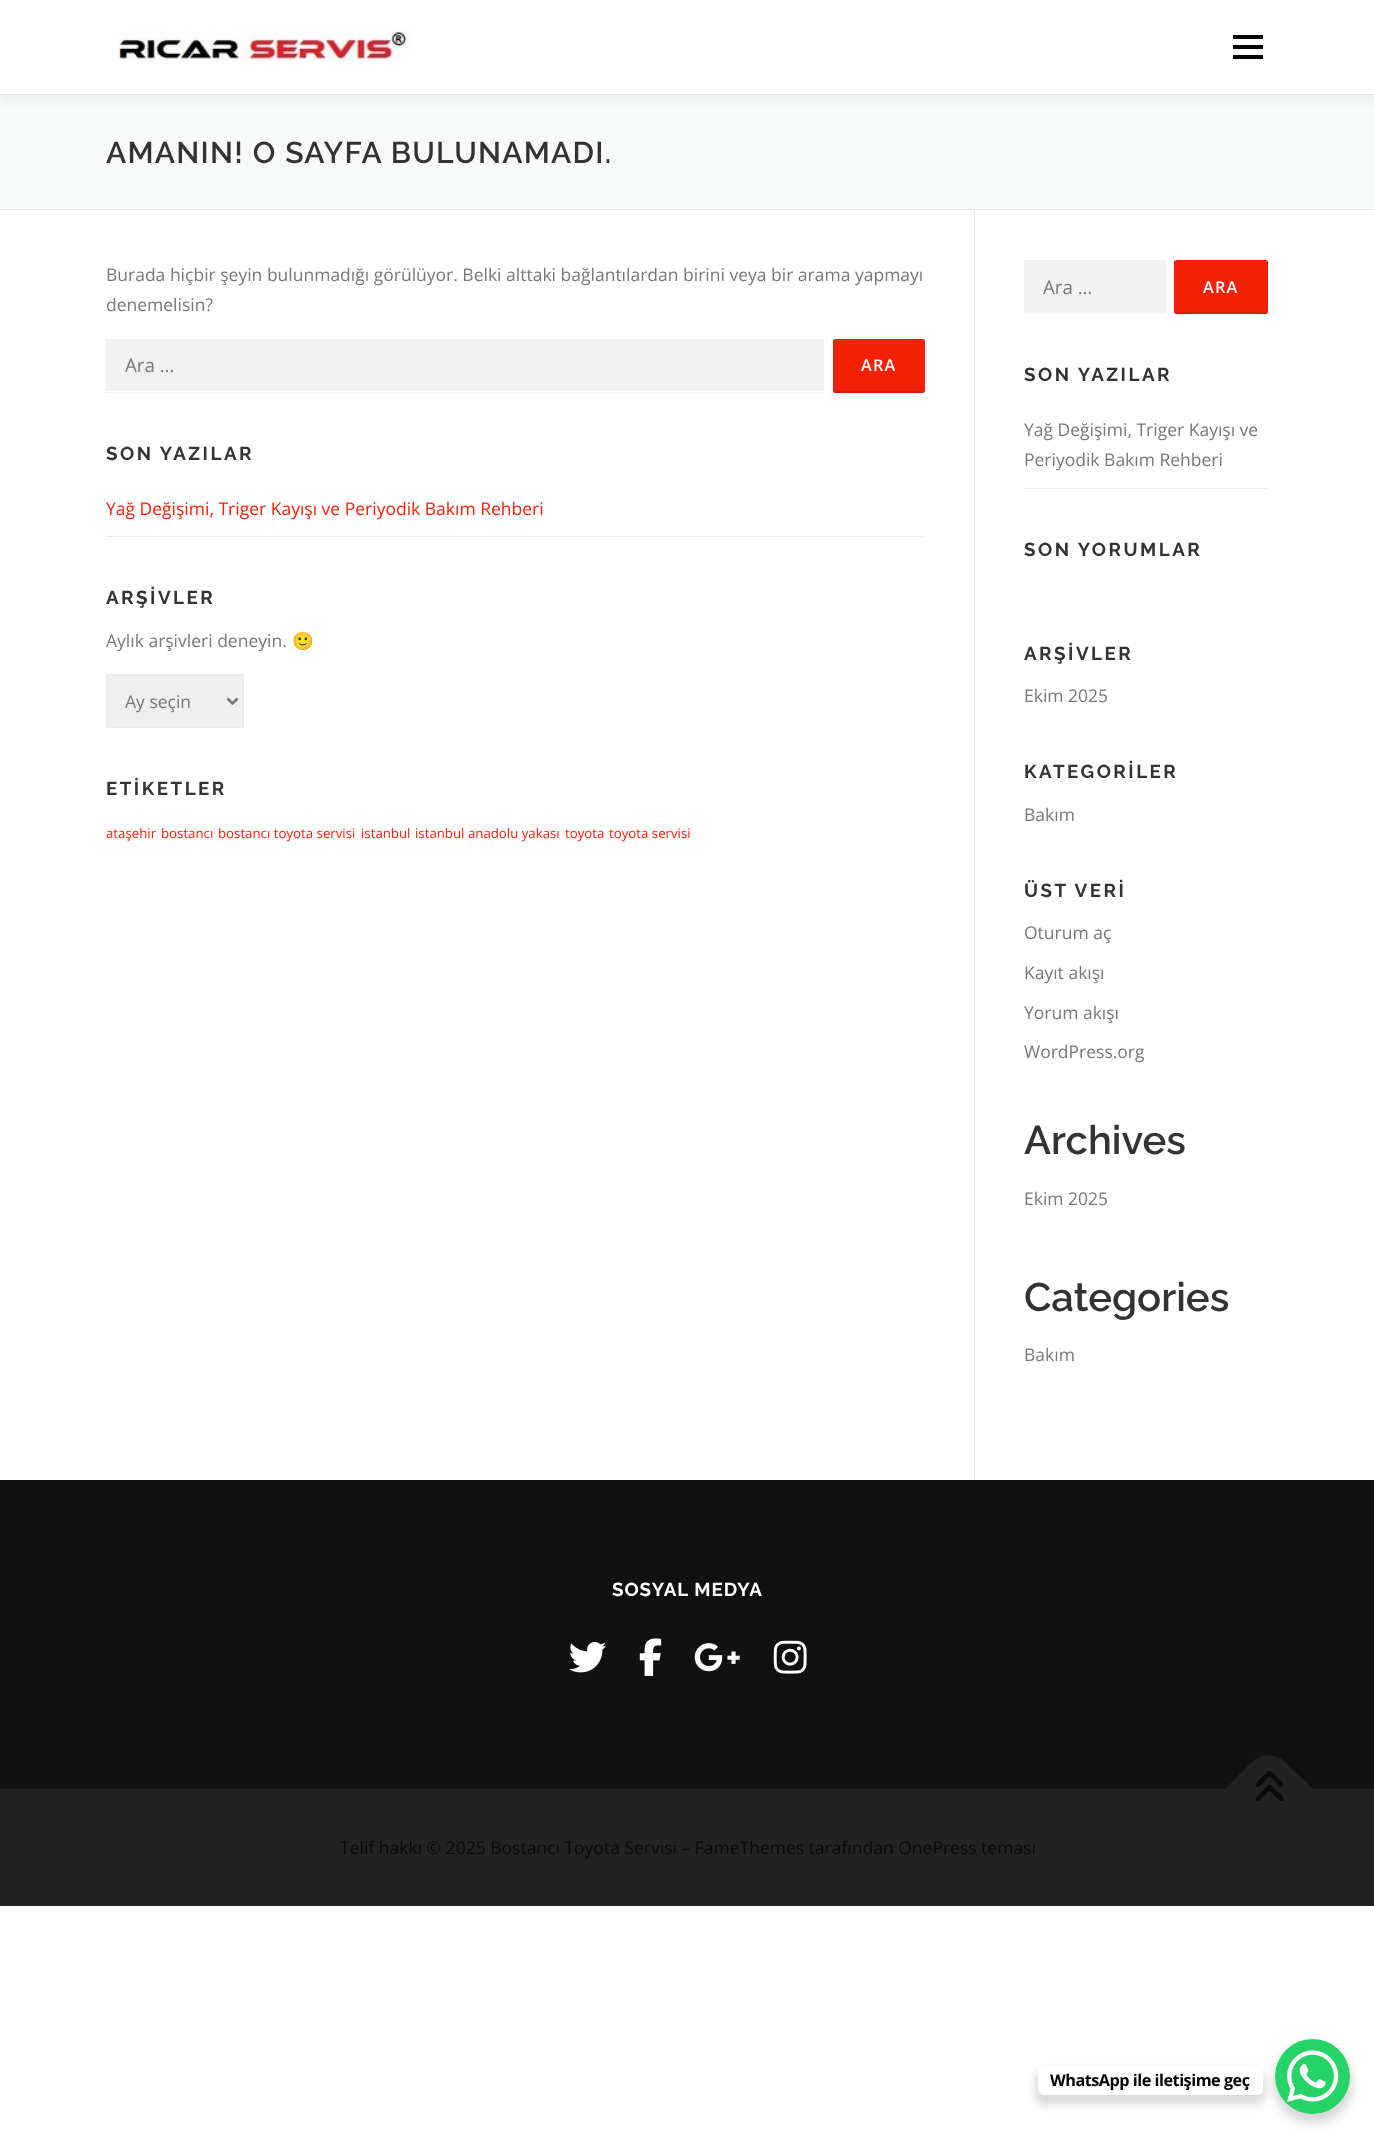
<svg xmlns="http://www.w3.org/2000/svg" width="1374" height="2138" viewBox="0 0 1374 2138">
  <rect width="100%" height="100%" fill="rgb(255,255,255)"/>
  <rect x="0" y="95" width="1374" height="114" fill="rgb(248,249,249)"/>
  <rect x="0" y="94" width="1374" height="1" fill="rgb(233,233,233)"/>
  <rect x="0" y="6" width="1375" height="94" fill="rgba(50,50,50,0.06)" filter="blur(6px)"/>
  <rect x="0" y="1" width="1374" height="93" fill="rgb(255,255,255)"/>
  <image x="117" y="29" width="296" height="33" href="pic1.png"/>
  <rect x="1233" y="45" width="30" height="4" fill="rgb(0,0,0)"/>
  <rect x="1233" y="35" width="30" height="4" fill="rgb(0,0,0)"/>
  <rect x="1233" y="55" width="30" height="4" fill="rgb(0,0,0)"/>
  <rect x="0" y="209" width="1374" height="1" fill="rgb(233,233,233)"/>
  <text x="106" y="163" font-family="Raleway" font-size="30" font-weight="600" letter-spacing="1.25" fill="rgb(51,51,51)">AMANIN! O SAYFA BULUNAMADI.</text>
  <g font-family="Open Sans" font-size="17.5" fill="rgb(119,119,119)">
    <text>
      <tspan x="106" y="281">Burada hiçbir şeyin bulunmadığı görülüyor. Belki alttaki bağlantılardan birini veya bir arama yapmayı</tspan>
      <tspan x="106" y="311">denemelisin?</tspan>
    </text>
  </g>
  <rect x="106" y="339" width="718" height="54" fill="rgb(242,242,242)"/>
  <rect x="106" y="391" width="718" height="1" fill="rgb(255,255,255)"/>
  <text x="125" y="372" font-family="Open Sans" font-size="18.75" fill="rgb(119,119,119)">Ara …</text>
  <rect x="833" y="339" width="92" height="54" rx="2.5" fill="rgb(244,33,9)"/>
  <path d="M833 390C833 392 834 393 836 393H922C924 393 925 392 925 390V389C925 390 924 391 922 391H835Z" fill="rgba(0,0,0,0.1)"/>
  <text x="861" y="371" font-family="Open Sans" font-size="16.25" font-weight="600" letter-spacing="1.25" fill="rgb(255,255,255)">ARA</text>
  <text x="106" y="460" font-family="Raleway" font-size="18.75" font-weight="bold" letter-spacing="2.5" fill="rgb(51,51,51)">SON YAZILAR</text>
  <rect x="106" y="536" width="819" height="1" fill="rgb(233,233,233)"/>
  <text x="106" y="515" font-family="Open Sans" font-size="17.5" fill="rgb(244,33,9)">Yağ Değişimi, Triger Kayışı ve Periyodik Bakım Rehberi</text>
  <text x="106" y="604" font-family="Raleway" font-size="18.75" font-weight="bold" letter-spacing="2.5" fill="rgb(51,51,51)">ARŞİVLER</text>
  <text x="106" y="647" font-family="Open Sans" font-size="17.5" fill="rgb(119,119,119)">Aylık arşivleri deneyin.</text>
  <text x="292" y="647" font-family="Noto Color Emoji" font-size="17.5" fill="rgb(119,119,119)">🙂</text>
  <rect x="106.5" y="674.5" width="137" height="53" fill="rgb(239,239,239)" stroke="rgb(233,233,233)"/>
  <path d="M227.5 698.5L232.5 703.5L237.5 698.5" fill="none" stroke="rgb(119,119,119)" stroke-width="2.5"/>
  <text x="125" y="708" font-family="Open Sans" font-size="17.5" fill="rgb(119,119,119)">Ay seçin</text>
  <text x="106" y="795" font-family="Raleway" font-size="18.75" font-weight="bold" letter-spacing="2.5" fill="rgb(51,51,51)">ETİKETLER</text>
  <g font-family="Open Sans" font-size="13.25" fill="rgb(244,33,9)">
    <text x="106" y="838">ataşehir</text>
    <text x="161" y="838">bostancı</text>
    <text x="218" y="838">bostancı toyota servisi</text>
    <text x="361" y="838">istanbul</text>
    <text x="415" y="838">istanbul anadolu yakası</text>
    <text x="565" y="838">toyota</text>
    <text x="609" y="838">toyota servisi</text>
  </g>
  <rect x="974" y="210" width="1" height="1270" fill="rgb(233,233,233)"/>
  <rect x="1024" y="260" width="142" height="53" fill="rgb(242,242,242)"/>
  <text x="1043" y="294" font-family="Open Sans" font-size="18.75" fill="rgb(119,119,119)">Ara …</text>
  <rect x="1174" y="260" width="94" height="54" rx="2.5" fill="rgb(244,33,9)"/>
  <path d="M1174 310C1174 318 1186 314 1191 314H1251C1256 314 1268 318 1268 310C1268 311 1266 312 1265 312H1176C1175 312 1174 311 1174 310Z" fill="rgba(0,0,0,0.1)"/>
  <text x="1203" y="293" font-family="Open Sans" font-size="16.25" font-weight="600" letter-spacing="1.25" fill="rgb(255,255,255)">ARA</text>
  <text x="1024" y="381" font-family="Raleway" font-size="18.75" font-weight="bold" letter-spacing="2.5" fill="rgb(51,51,51)">SON YAZILAR</text>
  <rect x="1024" y="488" width="244" height="1" fill="rgb(233,233,233)"/>
  <g font-family="Open Sans" font-size="17.5" fill="rgb(119,119,119)">
    <text>
      <tspan x="1024" y="436">Yağ Değişimi, Triger Kayışı ve</tspan>
      <tspan x="1024" y="466">Periyodik Bakım Rehberi</tspan>
    </text>
  </g>
  <g font-family="Raleway" font-size="18.75" font-weight="bold" letter-spacing="2.5" fill="rgb(51,51,51)">
    <text x="1024" y="556">SON YORUMLAR</text>
    <text x="1024" y="660">ARŞİVLER</text>
  </g>
  <text x="1024" y="702" font-family="Open Sans" font-size="17.5" fill="rgb(119,119,119)">Ekim 2025</text>
  <text x="1024" y="778" font-family="Raleway" font-size="18.75" font-weight="bold" letter-spacing="2.5" fill="rgb(51,51,51)">KATEGORİLER</text>
  <text x="1024" y="821" font-family="Open Sans" font-size="17.5" fill="rgb(119,119,119)">Bakım</text>
  <text x="1024" y="897" font-family="Raleway" font-size="18.75" font-weight="bold" letter-spacing="2.5" fill="rgb(51,51,51)">ÜST VERİ</text>
  <g font-family="Open Sans" font-size="17.5" fill="rgb(119,119,119)">
    <text x="1024" y="939">Oturum aç</text>
    <text x="1024" y="979">Kayıt akışı</text>
    <text x="1024" y="1019">Yorum akışı</text>
    <text x="1024" y="1058">WordPress.org</text>
  </g>
  <text x="1024" y="1154" font-family="Raleway" font-size="40" font-weight="600" fill="rgb(51,51,51)">Archives</text>
  <text x="1024" y="1205" font-family="Open Sans" font-size="17.5" fill="rgb(119,119,119)">Ekim 2025</text>
  <text x="1024" y="1311" font-family="Raleway" font-size="40" font-weight="600" fill="rgb(51,51,51)">Categories</text>
  <text x="1024" y="1361" font-family="Open Sans" font-size="17.5" fill="rgb(119,119,119)">Bakım</text>
  <rect x="0" y="1480" width="1374" height="309" fill="rgb(17,17,17)"/>
  <text x="612" y="1596" font-family="Raleway" font-size="18.75" font-weight="bold" letter-spacing="1" fill="rgb(255,255,255)">SOSYAL MEDYA</text>
  <image x="569" y="1642" width="38" height="31" href="pic2.png"/>
  <image x="639" y="1638" width="23" height="38" href="pic3.png"/>
  <image x="694" y="1643" width="46" height="29" href="pic4.png"/>
  <image x="773" y="1640" width="34" height="34" href="pic5.png"/>
  <rect x="0" y="1789" width="1374" height="117" fill="rgb(34,34,34)"/>
  <path d="M1225 1789L1251 1763C1261 1753 1277 1753 1286 1763L1313 1789L1269 1833Z" fill="rgb(34,34,34)"/>
  <image x="1255" y="1770" width="29" height="31" href="pic6.png"/>
  <text x="340" y="1854" font-family="Open Sans" font-size="17.5" fill="rgb(10,10,10)">Telif hakkı © 2025 Bostancı Toyota Servisi – FameThemes tarafından OnePress teması</text>
  <rect x="1273" y="2044" width="80" height="80" rx="40" fill="rgba(0,0,0,0.15)" filter="blur(5px)"/>
  <circle cx="1312.5" cy="2076.5" r="37.5" fill="rgb(37,211,102)"/>
  <rect x="1035" y="2071" width="230" height="34" rx="9" fill="rgba(0,0,0,0.15)" filter="blur(5px)"/>
  <rect x="1038" y="2066" width="225" height="29" rx="6" fill="rgb(255,255,255)"/>
  <text x="1050" y="2086" font-family="Open Sans" font-size="16.25" font-weight="bold" letter-spacing="-0.5" fill="rgb(0,0,0)">WhatsApp ile iletişime geç</text>
  <image x="1287" y="2050" width="52" height="52" href="pic7.png"/>
</svg>
